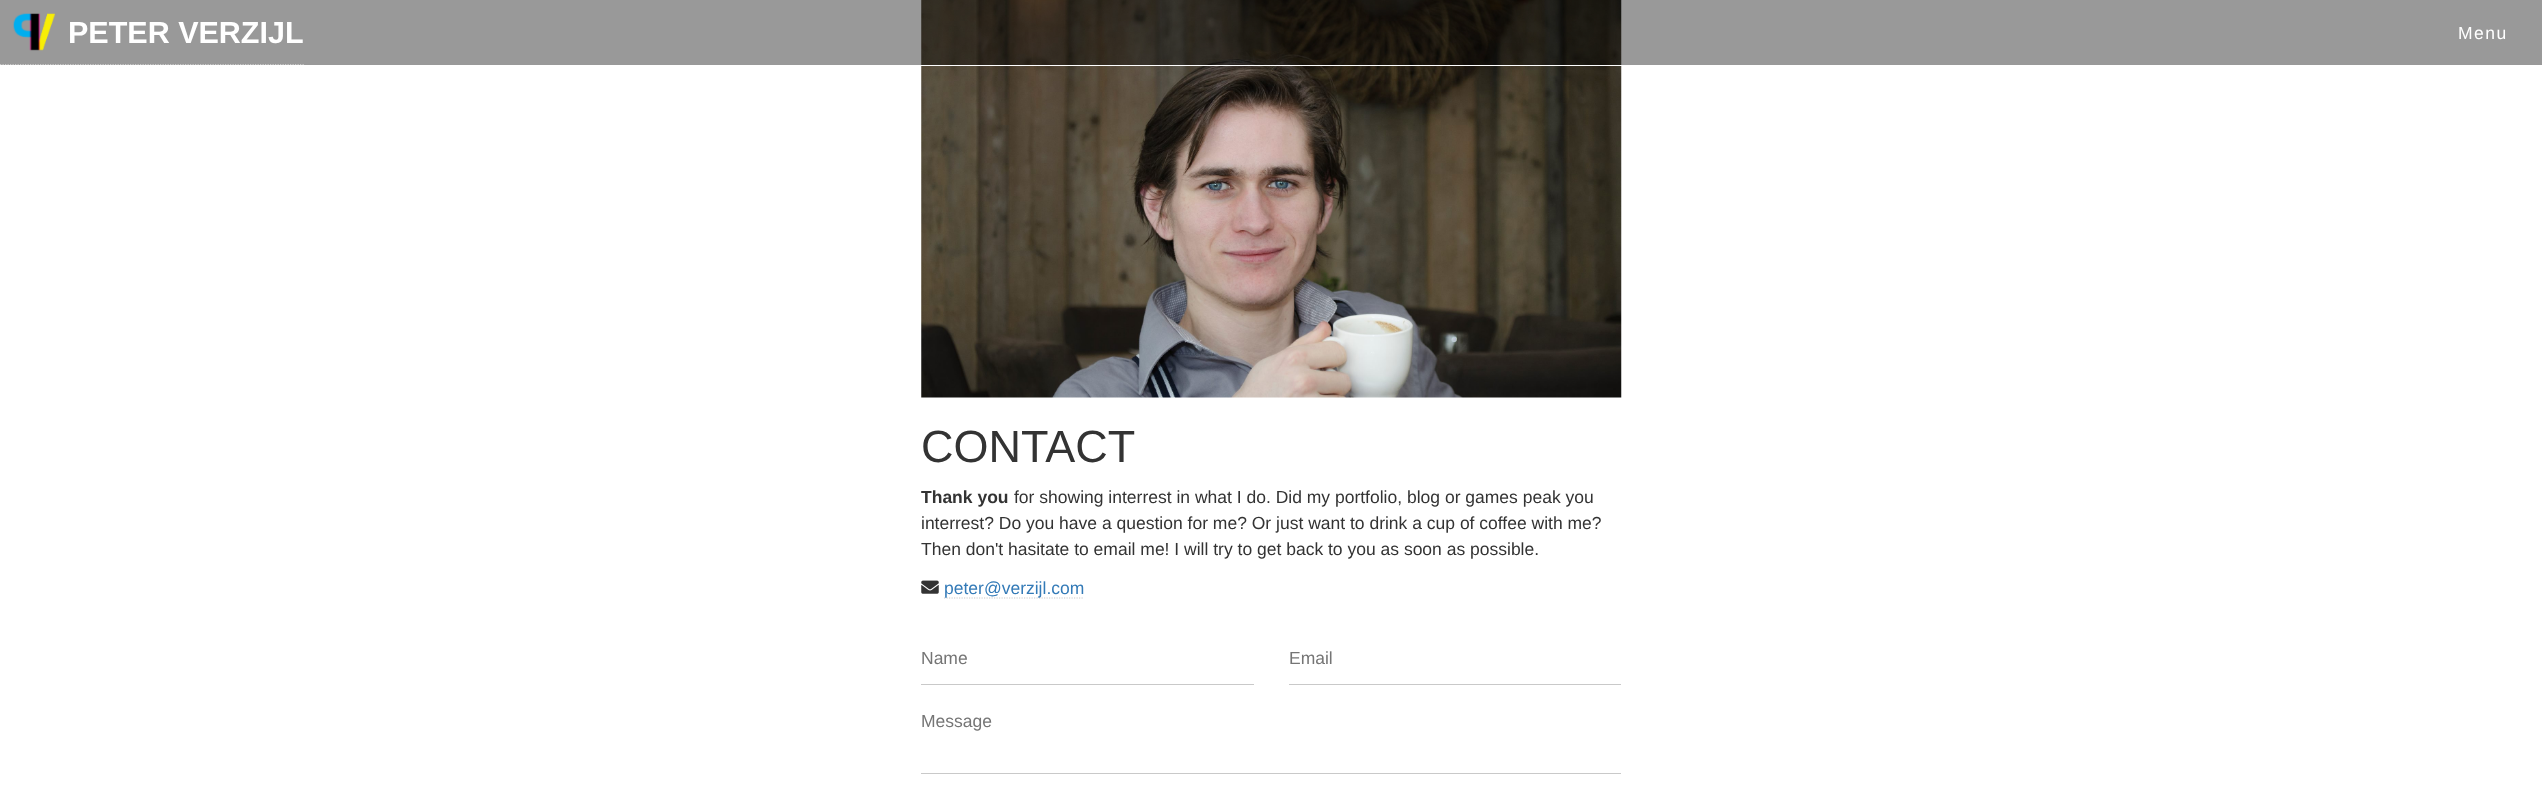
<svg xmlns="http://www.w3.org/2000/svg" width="2542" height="793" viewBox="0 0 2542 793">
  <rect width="100%" height="100%" fill="rgb(255,255,255)"/>
  <image x="921" y="0" width="701" height="398" href="pic2.png"/>
  <rect x="0" y="0" width="2542" height="65" fill="rgba(0,0,0,0.4)"/>
  <rect x="921" y="65" width="701" height="1" fill="rgb(255,255,255)"/>
  <path d="M0 64.5H305" fill="none" stroke="rgb(204,204,204)" stroke-width="1.2" stroke-dasharray="1.25 1.25"/>
  <image x="13" y="13" width="43" height="38" href="pic1.png"/>
  <text x="68" y="43" font-family="Liberation Sans" font-size="30.5" font-weight="bold" fill="rgb(255,255,255)">PETER VERZIJL</text>
  <text x="2458" y="39" font-family="Liberation Sans" font-size="17.5" letter-spacing="1.5" fill="rgb(255,255,255)">Menu</text>
  <text x="921" y="462" font-family="Liberation Sans" font-size="45" fill="rgb(51,51,51)">CONTACT</text>
  <text x="921" y="503" font-family="Liberation Sans" font-size="17.5" font-weight="bold" fill="rgb(51,51,51)">Thank you</text>
  <g font-family="Liberation Sans" font-size="17.5" fill="rgb(51,51,51)">
    <text x="1014" y="503">for showing interrest in what I do. Did my portfolio, blog or games peak you</text>
    <text>
      <tspan x="921" y="529">interrest? Do you have a question for me? Or just want to drink a cup of coffee with me?</tspan>
      <tspan x="921" y="555">Then don't hasitate to email me! I will try to get back to you as soon as possible.</tspan>
    </text>
  </g>
  <image x="921" y="580" width="18" height="14" href="pic3.png"/>
  <path d="M944 598H1084" fill="none" stroke="rgb(204,204,204)" stroke-width="1.2" stroke-dasharray="1.25 1.25"/>
  <text x="944" y="594" font-family="Liberation Sans" font-size="17.5" fill="rgb(51,122,183)">peter@verzijl.com</text>
  <rect x="921" y="684" width="333" height="1" fill="rgb(201,201,201)"/>
  <text x="921" y="664" font-family="Liberation Sans" font-size="17.5" fill="rgb(117,117,117)">Name</text>
  <rect x="1289" y="684" width="332" height="1" fill="rgb(201,201,201)"/>
  <text x="1289" y="664" font-family="Liberation Sans" font-size="17.5" fill="rgb(117,117,117)">Email</text>
  <rect x="921" y="773" width="700" height="1" fill="rgb(201,201,201)"/>
  <text x="921" y="727" font-family="Liberation Sans" font-size="17.5" fill="rgb(117,117,117)">Message</text>
</svg>
